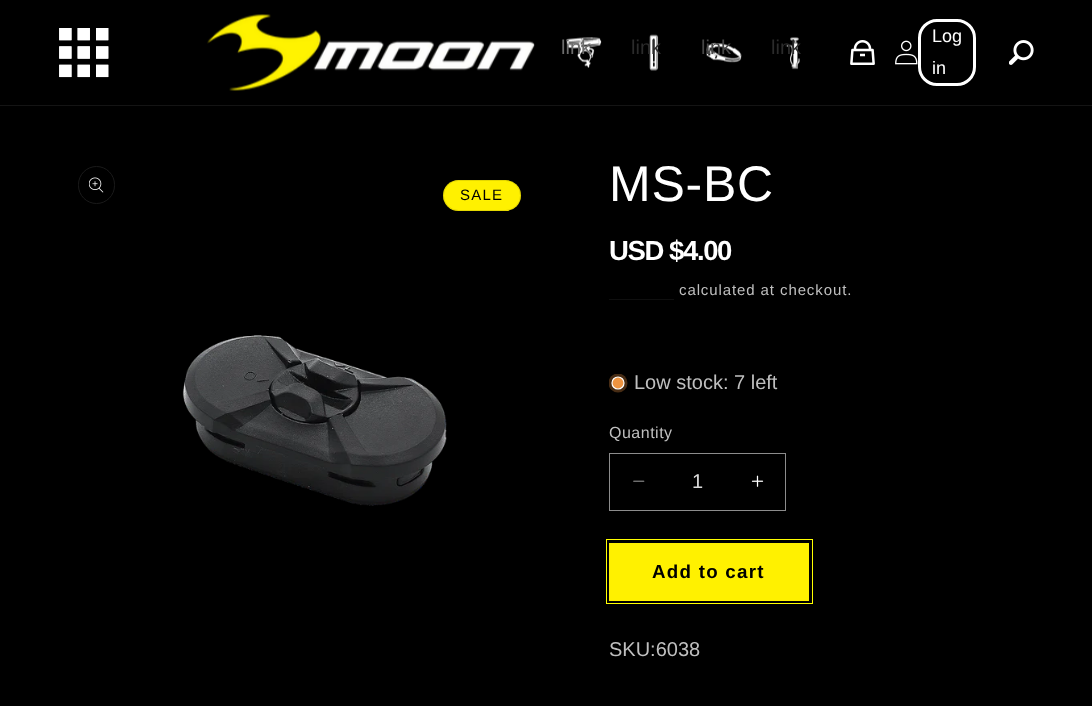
<svg xmlns="http://www.w3.org/2000/svg" width="1092" height="706" viewBox="0 0 1092 706">
  <defs>
    <clipPath id="clip1"><rect x="609" y="374" width="19" height="19"/></clipPath>
  </defs>
  <rect width="100%" height="100%" fill="rgb(0,0,0)"/>
  <rect x="0" y="105" width="1092" height="1" fill="rgb(20,20,20)"/>
  <image x="59" y="28" width="50" height="50" href="pic1.png"/>
  <image x="59" y="28" width="50" height="50" href="pic2.png"/>
  <image x="207" y="14" width="328" height="77" href="pic3.png"/>
  <image x="566" y="37" width="36" height="31" href="pic4.png"/>
  <text x="561" y="54" font-family="Liberation Sans" font-size="20" fill="rgb(108,108,108)">link</text>
  <image x="649" y="34" width="10" height="37" href="pic5.png"/>
  <text x="631" y="54" font-family="Liberation Sans" font-size="20" fill="rgb(43,43,43)">link</text>
  <image x="706" y="42" width="36" height="21" href="pic6.png"/>
  <text x="701" y="54" font-family="Liberation Sans" font-size="20" fill="rgb(70,70,70)">link</text>
  <image x="785" y="37" width="15" height="33" href="pic7.png"/>
  <text x="771" y="54" font-family="Liberation Sans" font-size="20" fill="rgb(43,43,43)">link</text>
  <image x="850" y="40" width="25" height="25" href="pic8.png"/>
  <image x="895" y="40" width="23" height="25" href="pic9.png"/>
  <rect x="919.5" y="20.5" width="55" height="64" rx="17.5" fill="none" stroke="rgb(255,255,255)" stroke-width="3"/>
  <g font-family="Liberation Sans" font-size="18" fill="rgb(255,255,255)">
    <text>
      <tspan x="932" y="42">Log</tspan>
      <tspan x="932" y="74">in</tspan>
    </text>
  </g>
  <image x="1009" y="40" width="25" height="25" href="pic10.png"/>
  <rect x="78.5" y="166.5" width="36" height="37" rx="18" fill="none" stroke="rgb(26,26,26)"/>
  <image x="89" y="177" width="15" height="16" href="pic11.png"/>
  <image x="182" y="335" width="265" height="171" href="pic12.png"/>
  <rect x="443" y="180" width="78" height="31" rx="15.5" fill="rgb(255,241,0)"/>
  <rect x="443.5" y="180.5" width="77" height="30" rx="15" fill="none" stroke="rgba(0,0,0,0.1)"/>
  <text x="460" y="200" font-family="Liberation Sans" font-size="15" letter-spacing="1.25" fill="rgb(0,0,0)">SALE</text>
  <text x="609" y="201" font-family="Liberation Sans" font-size="50" letter-spacing="0.75" fill="rgb(255,255,255)">MS-BC</text>
  <text x="609" y="260" font-family="Liberation Sans" font-size="27.5" font-weight="bold" letter-spacing="-1.4" fill="rgb(255,255,255)">USD $4.00</text>
  <text x="679" y="295" font-family="Liberation Sans" font-size="15" letter-spacing="0.9" fill="rgb(191,191,191)">calculated at checkout.</text>
  <rect x="609" y="299" width="65" height="1" fill="rgb(15,15,15)"/>
  <g clip-path="url(#clip1)">
    <circle cx="618" cy="383" r="9.5" fill="rgb(71,44,20)"/>
  </g>
  <circle cx="618" cy="383" r="6" fill="rgb(238,148,65)" stroke="rgb(255,255,255)" stroke-width="1.2"/>
  <text x="634" y="389" font-family="Liberation Sans" font-size="20" fill="rgb(191,191,191)">Low stock: 7 left</text>
  <text x="609" y="438" font-family="Liberation Sans" font-size="16" letter-spacing="0.5" fill="rgb(191,191,191)">Quantity</text>
  <image x="633" y="480" width="12" height="2" href="pic13.png"/>
  <image x="751" y="475" width="13" height="12" href="pic14.png"/>
  <rect x="609.5" y="453.5" width="176" height="57" fill="none" stroke="rgb(140,140,140)"/>
  <text x="692" y="488" font-family="Liberation Sans" font-size="20" fill="rgb(217,217,217)">1</text>
  <rect x="609" y="543" width="200" height="58" fill="rgb(255,241,0)"/>
  <rect x="606.5" y="539.5" width="206" height="64" fill="none" stroke="rgb(255,255,0)"/>
  <text x="652" y="578" font-family="Liberation Sans" font-size="18.75" font-weight="bold" letter-spacing="1.25" fill="rgb(0,0,0)">Add to cart</text>
  <text x="609" y="656" font-family="Liberation Sans" font-size="20" fill="rgb(191,191,191)">SKU:6038</text>
</svg>
